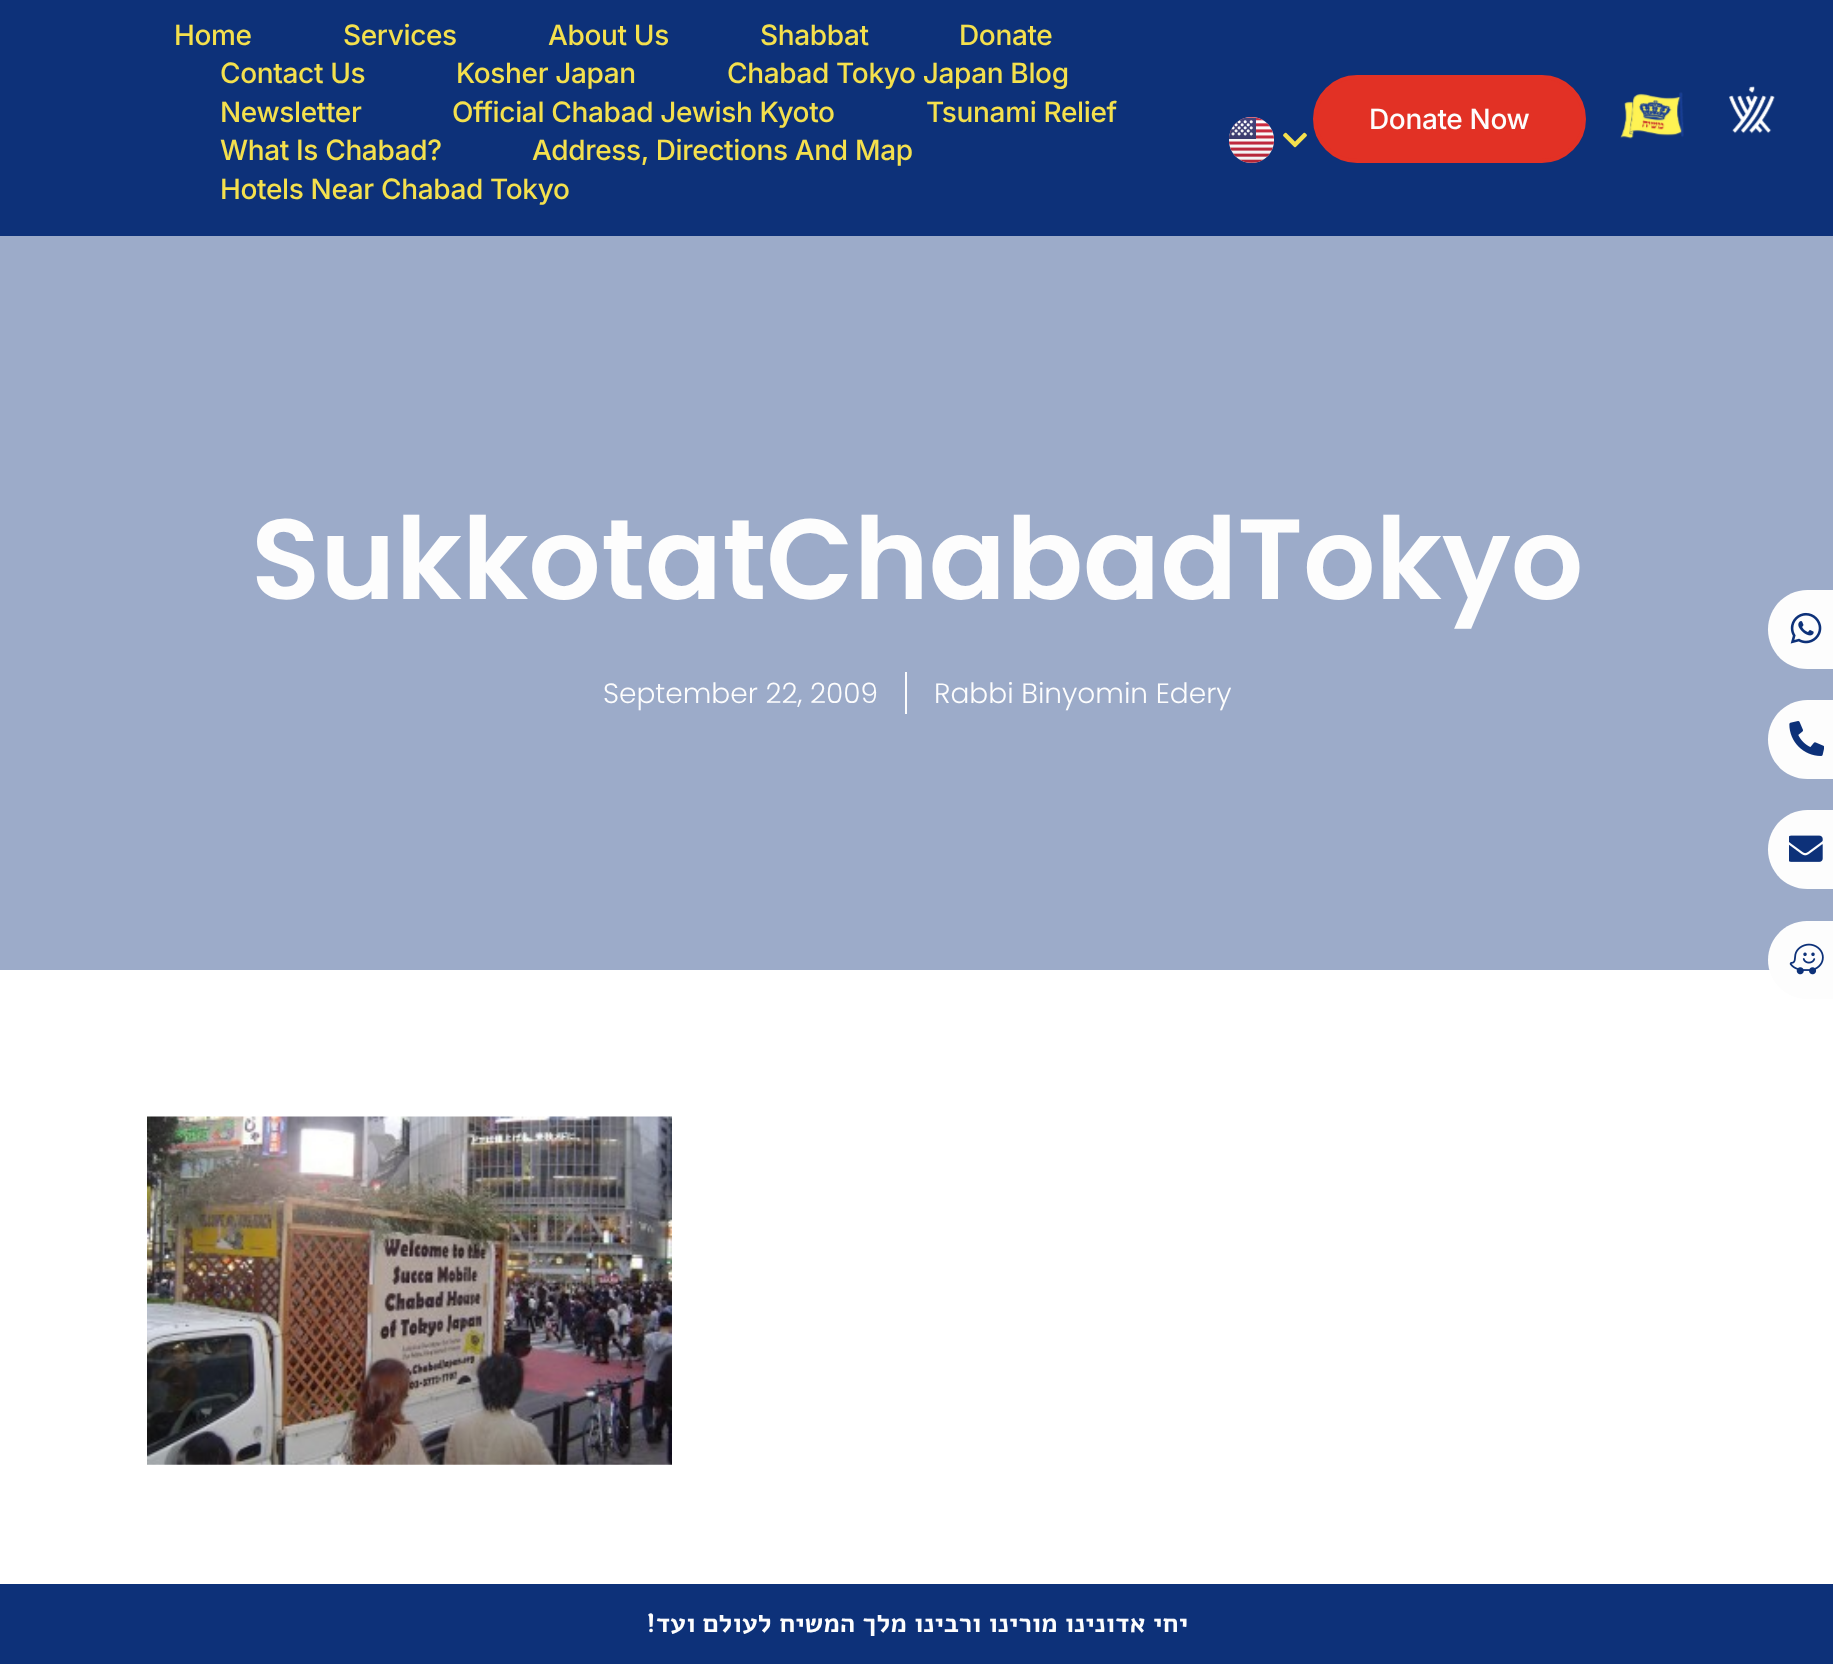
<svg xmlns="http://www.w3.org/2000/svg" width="1833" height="1664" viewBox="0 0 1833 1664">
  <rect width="100%" height="100%" fill="rgb(255,255,255)"/>
  <rect x="0" y="0" width="1833" height="236" fill="rgb(13,49,121)"/>
  <g font-family="Inter" font-size="28" font-weight="500" letter-spacing="-0.35" fill="rgb(244,224,77)">
    <text x="174" y="45">Home</text>
    <text x="343" y="45">Services</text>
    <text x="548" y="45">About Us</text>
    <text x="760" y="45">Shabbat</text>
    <text x="959" y="45">Donate</text>
    <text x="220" y="83">Contact Us</text>
    <text x="456" y="83">Kosher Japan</text>
    <text x="727" y="83">Chabad Tokyo Japan Blog</text>
    <text x="220" y="122">Newsletter</text>
    <text x="452" y="122">Official Chabad Jewish Kyoto</text>
    <text x="926" y="122">Tsunami Relief</text>
    <text x="220" y="160">What Is Chabad?</text>
    <text x="532" y="160">Address, Directions And Map</text>
    <text x="220" y="199">Hotels Near Chabad Tokyo</text>
  </g>
  <image x="1229" y="117" width="45" height="46" href="pic1.png"/>
  <image x="1283" y="132" width="24" height="16" href="pic2.png"/>
  <rect x="1315" y="77" width="269" height="84" rx="42" fill="rgb(226,49,37)" stroke="rgb(226,49,37)" stroke-width="4"/>
  <text x="1369" y="129" font-family="Inter" font-size="28" font-weight="500" letter-spacing="-0.35" fill="rgb(253,253,253)">Donate Now</text>
  <image x="1620" y="92" width="64" height="47" href="pic3.png"/>
  <image x="1729" y="86" width="46" height="48" href="pic4.png"/>
  <rect x="0" y="236" width="1833" height="734" fill="rgb(156,171,201)"/>
  <text x="251" y="599" font-family="Poppins" font-size="113.75" font-weight="600" fill="rgb(253,253,253)">SukkotatChabadTokyo</text>
  <text x="603" y="703" font-family="Poppins" font-size="28" font-weight="300" fill="rgb(253,253,253)">September 22, 2009</text>
  <rect x="905" y="672" width="2" height="42" fill="rgb(253,253,253)"/>
  <text x="934" y="703" font-family="Poppins" font-size="28" font-weight="300" fill="rgb(253,253,253)">Rabbi Binyomin Edery</text>
  <image x="147" y="1116" width="525" height="349" href="pic5.png"/>
  <path d="M1807.5 590H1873V669H1807.5C1785.5 669 1768 651.5 1768 629.5C1768 607.5 1785.5 590 1807.5 590Z" fill="rgb(253,253,253)"/>
  <image x="1790" y="612" width="32" height="32" href="pic6.png"/>
  <path d="M1807.5 700H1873V779H1807.5C1785.5 779 1768 761.5 1768 739.5C1768 717.5 1785.5 700 1807.5 700Z" fill="rgb(253,253,253)"/>
  <image x="1789" y="721" width="35" height="35" href="pic7.png"/>
  <path d="M1807.5 810H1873V889H1807.5C1785.5 889 1768 871.5 1768 849.5C1768 827.5 1785.5 810 1807.5 810Z" fill="rgb(253,253,253)"/>
  <image x="1789" y="835" width="34" height="27" href="pic8.png"/>
  <path d="M1807 921H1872V999H1807C1785.5 999 1768 981.5 1768 960C1768 938.5 1785.5 921 1807 921Z" fill="rgb(253,253,253)"/>
  <image x="1789" y="943" width="35" height="32" href="pic9.png"/>
  <rect x="0" y="1584" width="1833" height="80" fill="rgb(13,49,121)"/>
  <text x="1188" y="1632" font-family="Alef" font-size="26.25" font-weight="bold" direction="rtl" fill="rgb(253,253,253)">יחי אדונינו מורינו ורבינו מלך המשיח לעולם ועד!</text>
</svg>
